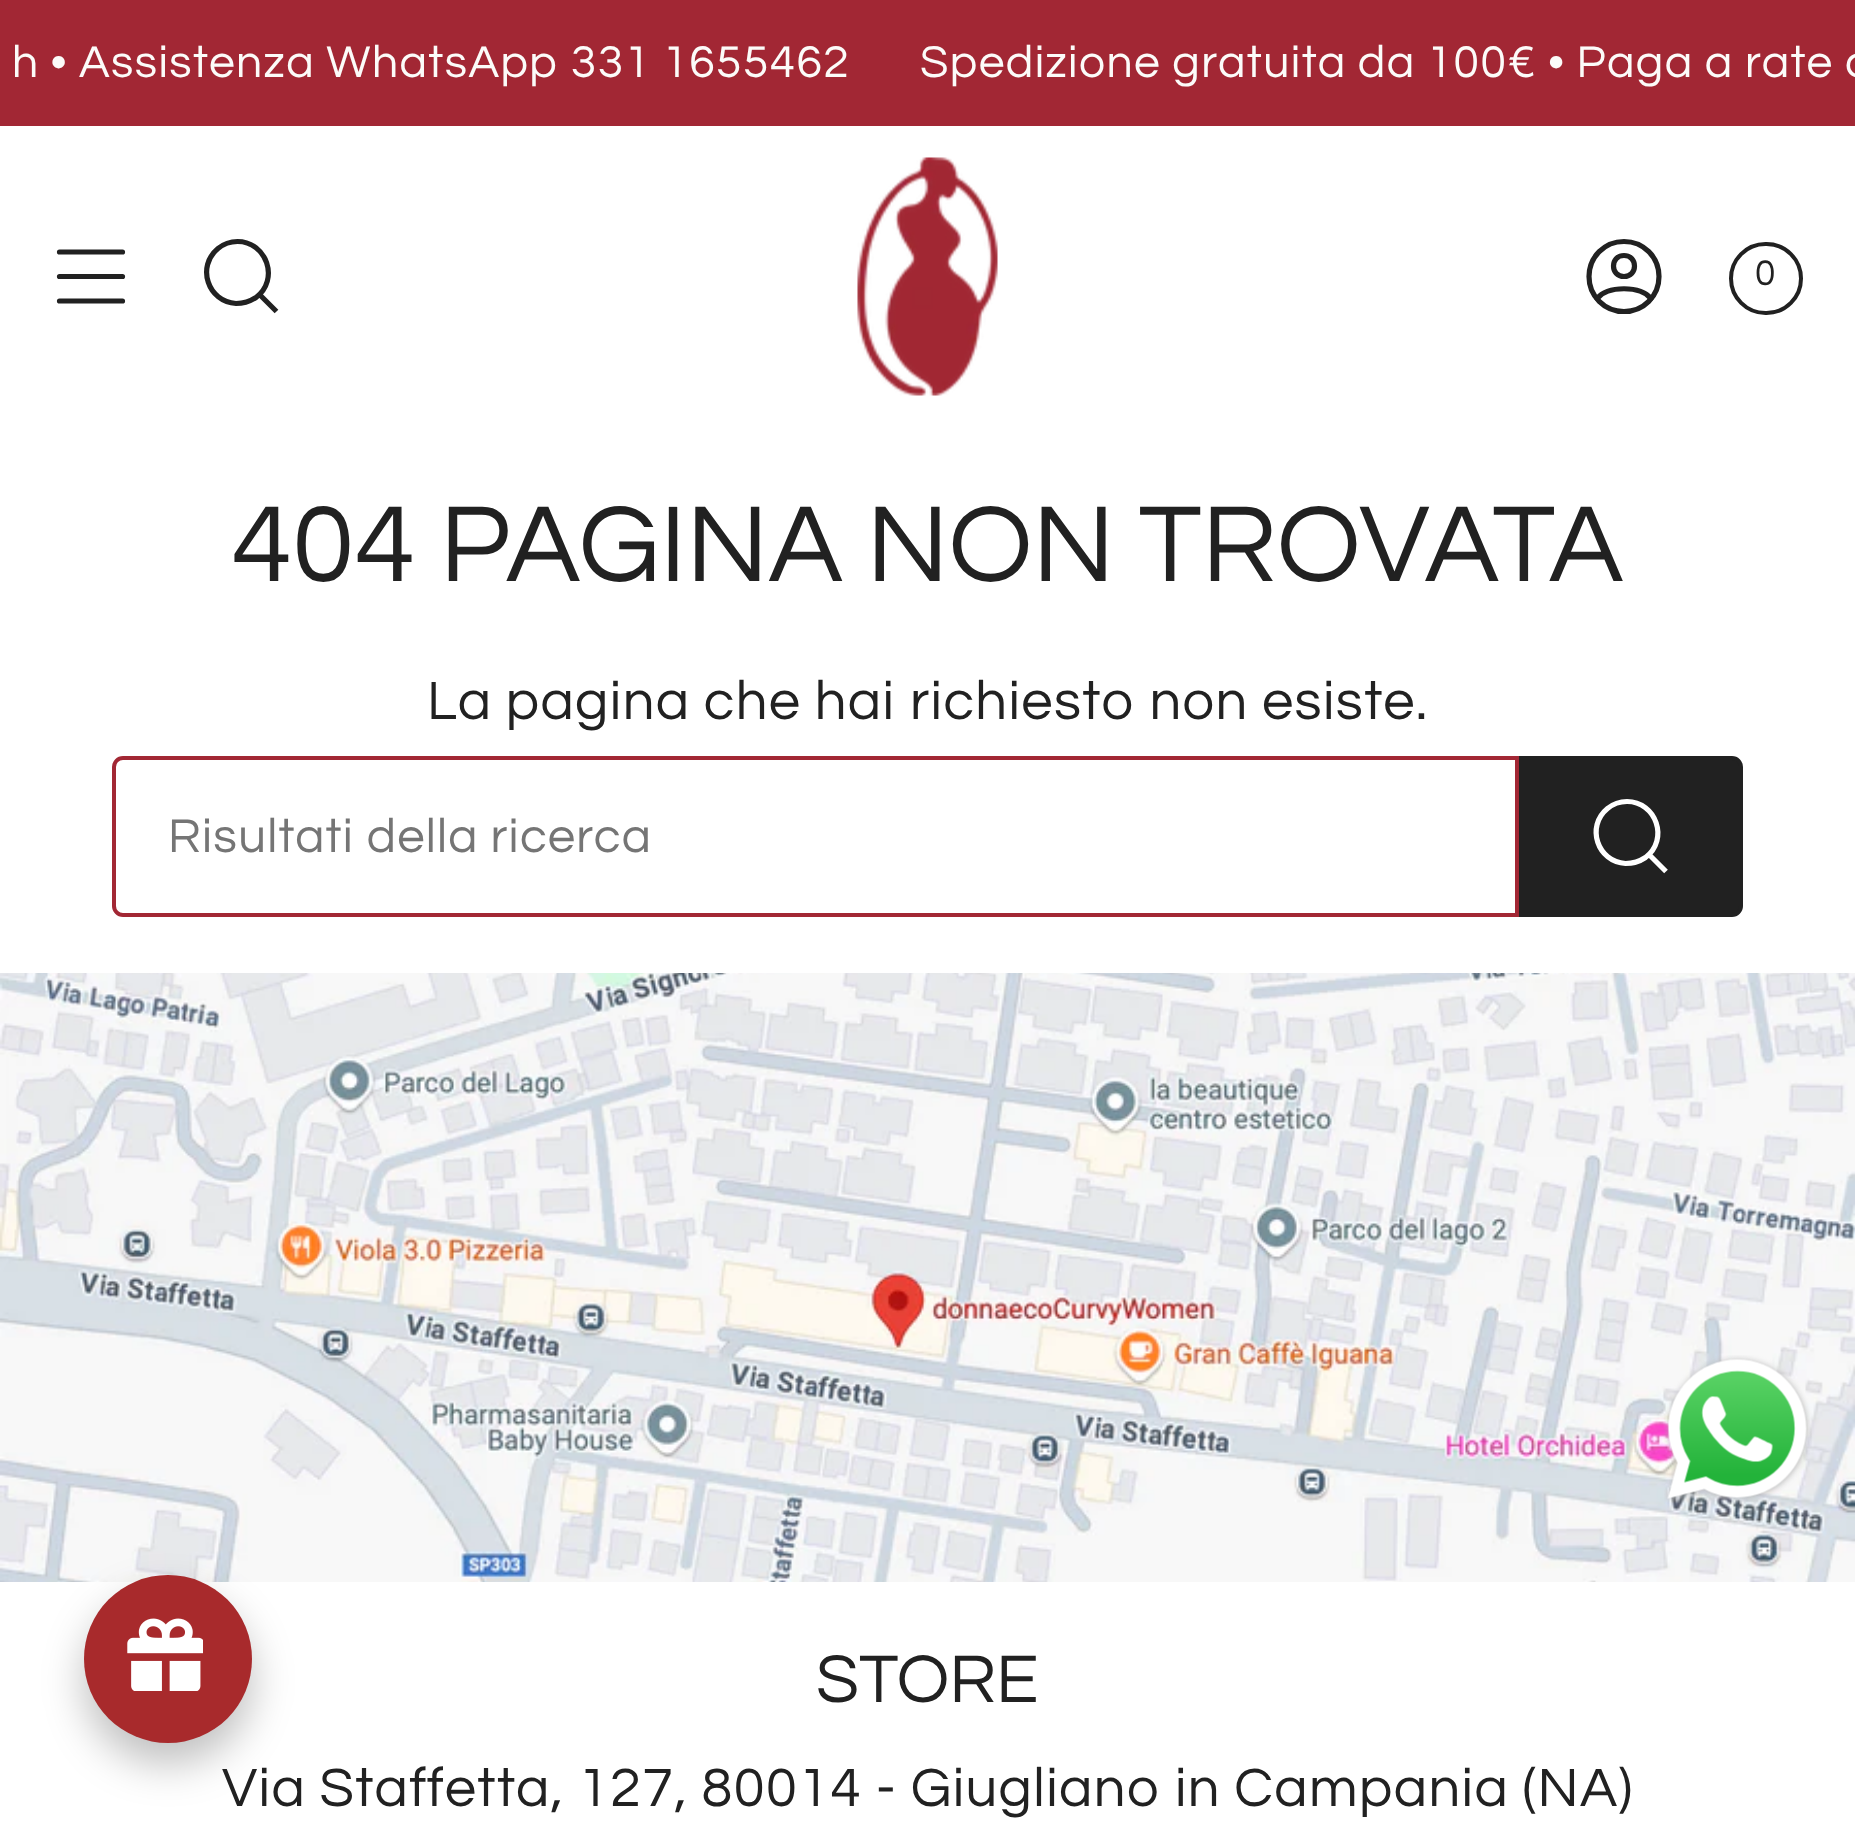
<svg xmlns="http://www.w3.org/2000/svg" width="1855" height="1827" viewBox="0 0 1855 1827">
  <rect width="100%" height="100%" fill="rgb(255,255,255)"/>
  <rect x="0" y="0" width="1855" height="126" fill="rgb(162,39,52)"/>
  <g font-family="Questrial" font-size="46.2" letter-spacing="1.4" fill="rgb(252,251,249)">
    <text x="12" y="77">h • Assistenza WhatsApp 331 1655462</text>
    <text x="920" y="77">Spedizione gratuita da 100€ • Paga a rate c</text>
  </g>
  <path d="M59.5 252H122.5M59.5 276.5H122.5M59.5 301H122.5" fill="none" stroke="rgb(33,33,33)" stroke-width="5.2" stroke-linecap="round" stroke-linejoin="round"/>
  <path d="M237.5 241.5C266.5 241.5 280 279.5 256 297.5C250 301.5 243 303.5 236 303.5C208 302 196 266.5 218 248.5C223.5 244 230.5 241.5 237.5 241.5ZM259.5 294.5L276.5 311.5" fill="none" stroke="rgb(33,33,33)" stroke-width="5.2"/>
  <image x="857" y="157" width="141" height="239" href="pic1.png"/>
  <path d="M1624 241.5C1604.5 241.5 1589 257 1589 276.5C1589 296 1604.5 311.5 1624 311.5C1643.5 311.5 1659 296 1659 276.5C1659 257 1643.5 241.5 1624 241.5Z" fill="none" stroke="rgb(33,33,33)" stroke-width="5.2" stroke-linecap="round" stroke-linejoin="round"/>
  <path d="M1597 298.5C1607.5 285.5 1640.5 285.5 1651 298.5M1624 276.5C1638 276.5 1638 255.5 1624 255.5C1610 255.5 1610 276.5 1624 276.5Z" fill="none" stroke="rgb(33,33,33)" stroke-width="5.2" stroke-linecap="round" stroke-linejoin="round"/>
  <rect x="1731" y="244" width="70" height="69" rx="34.5" fill="none" stroke="rgb(33,33,33)" stroke-width="4"/>
  <text x="1755" y="285" font-family="Questrial" font-size="37" fill="rgb(33,33,33)">0</text>
  <text x="231" y="581" font-family="Questrial" font-size="112" fill="rgb(33,33,33)">404 PAGINA NON TROVATA</text>
  <text x="427" y="719" font-family="Questrial" font-size="56" letter-spacing="1.4" fill="rgb(33,33,33)">La pagina che hai richiesto non esiste.</text>
  <path d="M123 758H1517V915H123C118 915 114 911 114 906V767C114 762 118 758 123 758Z" fill="none" stroke="rgb(162,39,52)" stroke-width="4"/>
  <text x="168" y="852" font-family="Questrial" font-size="49" letter-spacing="1.25" fill="rgb(117,117,117)">Risultati della ricerca</text>
  <path d="M1521 758H1732C1737 758 1741 762 1741 767V906C1741 911 1737 915 1732 915H1521Z" fill="rgb(33,33,33)" stroke="rgb(33,33,33)" stroke-width="4"/>
  <path d="M1627 801.5C1656 801.5 1669.5 839.5 1645.5 857.5C1639.5 861.5 1632.5 863.5 1625.5 863.5C1597.5 862 1585.5 826.5 1607.5 808.5C1613 804 1620 801.5 1627 801.5ZM1649 854.5L1666 871.5" fill="none" stroke="rgb(255,255,255)" stroke-width="5.2"/>
  <image x="0" y="973" width="1855" height="609" href="pic4.png"/>
  <image x="1664" y="1355" width="148" height="149" href="pic2.png"/>
  <rect x="84" y="1596" width="168" height="168" rx="84" fill="rgba(0,0,0,0.25)" filter="blur(21px)"/>
  <circle cx="168" cy="1659" r="84" fill="rgb(168,42,44)"/>
  <image x="127" y="1618" width="76" height="73" href="pic3.png"/>
  <text x="816" y="1702" font-family="Questrial" font-size="70" fill="rgb(33,33,33)">STORE</text>
  <text x="222" y="1806" font-family="Questrial" font-size="56" letter-spacing="1.4" fill="rgb(33,33,33)">Via Staffetta, 127, 80014 - Giugliano in Campania (NA)</text>
</svg>
